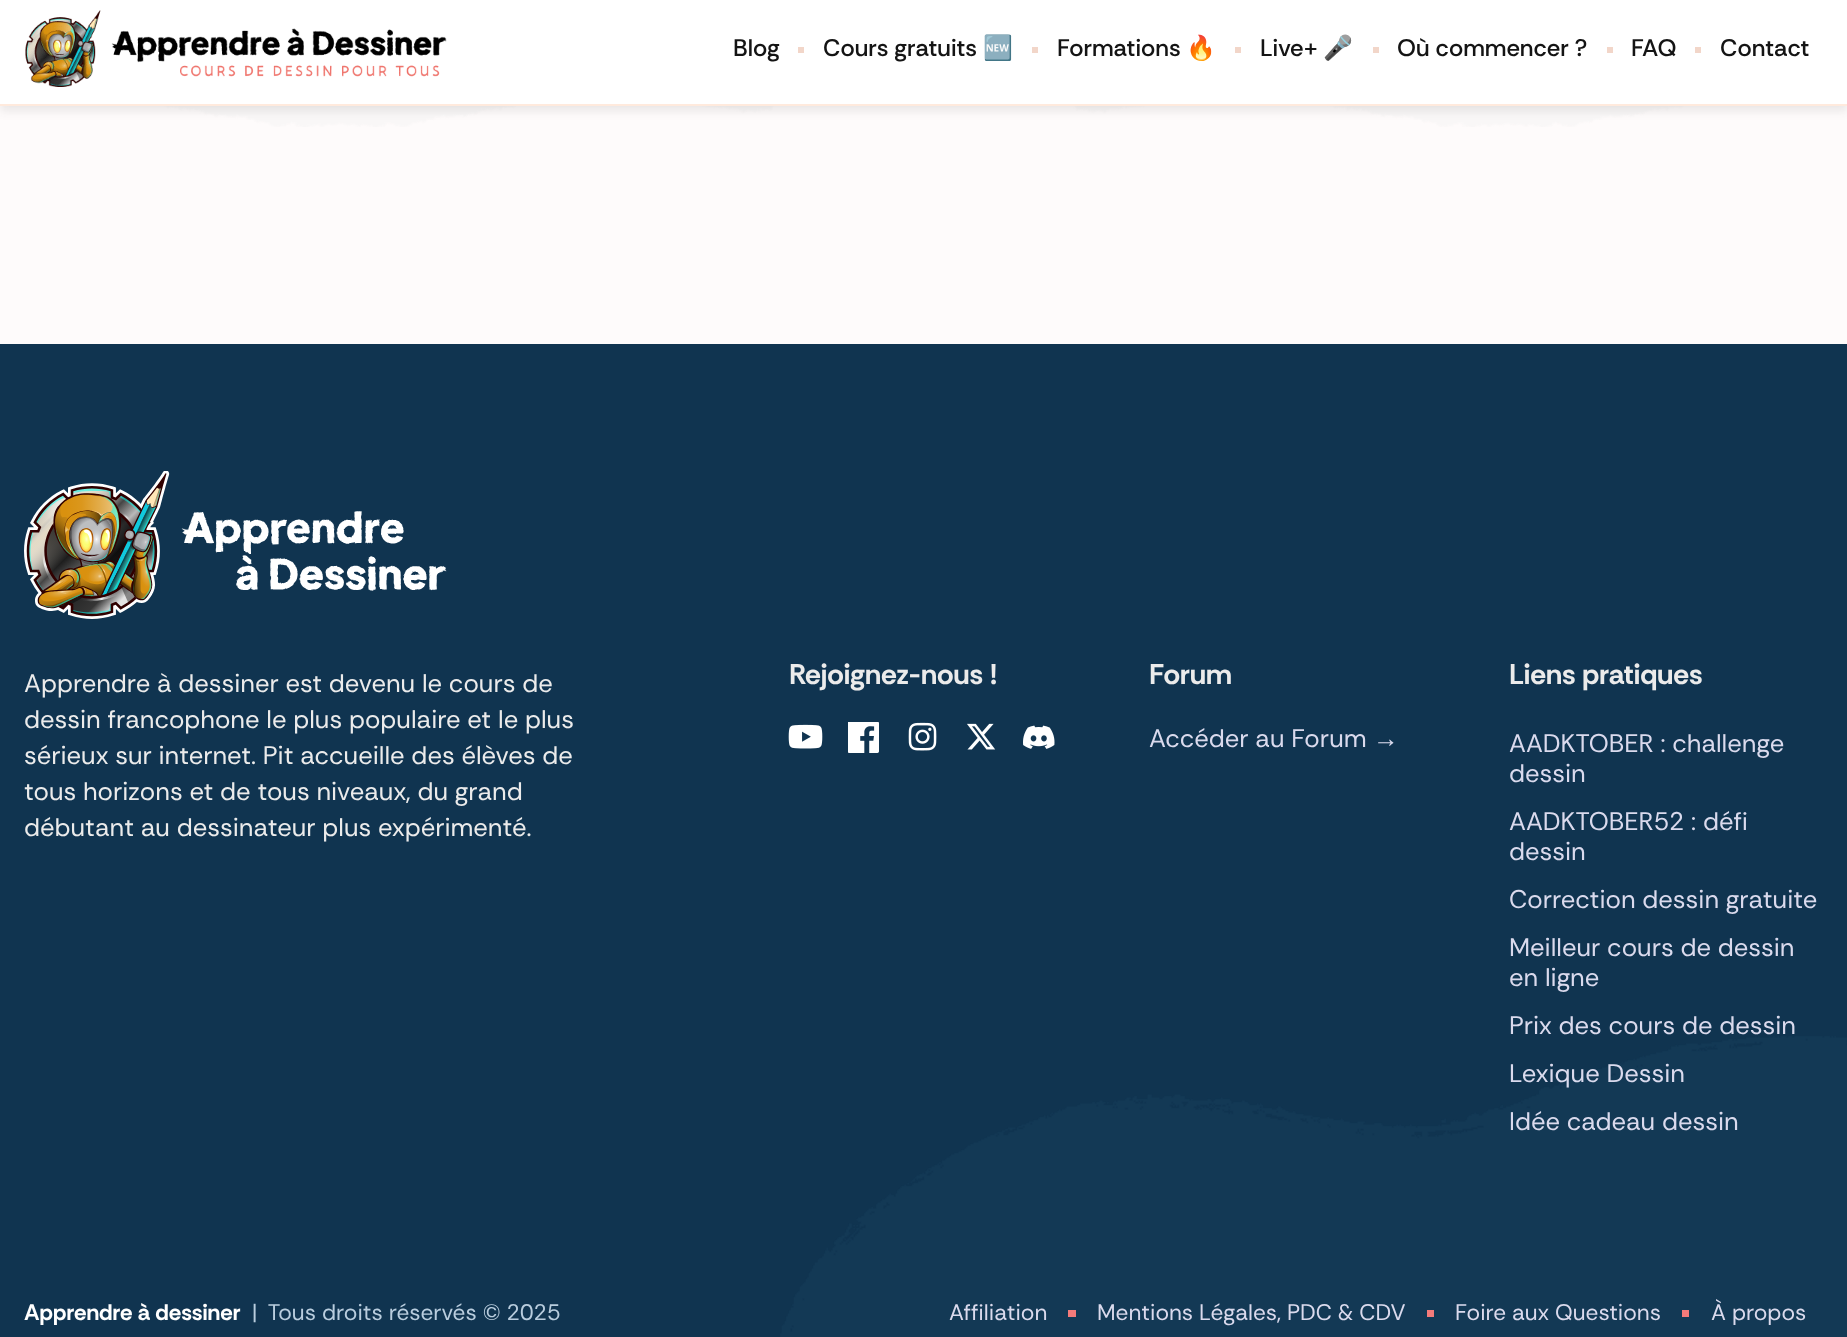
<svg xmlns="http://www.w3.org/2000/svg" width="1847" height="1337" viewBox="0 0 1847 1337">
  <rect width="100%" height="100%" fill="rgb(254,251,251)"/>
  <image x="164" y="106" width="1520" height="21" href="pic2.png"/>
  <rect x="0" y="6" width="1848" height="105" fill="rgba(50,50,50,0.1)" filter="blur(5px)"/>
  <rect x="0" y="0" width="1847" height="104" fill="rgb(255,255,255)"/>
  <rect x="0" y="104" width="1847" height="2" fill="rgb(255,234,221)"/>
  <image x="25" y="10" width="422" height="77" href="pic1.png"/>
  <text x="733" y="56" font-family="Rethink Sans" font-size="24" font-weight="500" fill="rgb(20,20,20)">Blog</text>
  <rect x="798" y="47" width="6" height="6" fill="rgb(242,214,201)"/>
  <text x="823" y="56" font-family="Rethink Sans" font-size="24" font-weight="500" fill="rgb(20,20,20)">Cours gratuits</text>
  <text x="983" y="56" font-family="Noto Color Emoji" font-size="24" fill="rgb(20,20,20)">🆕</text>
  <rect x="1032" y="47" width="6" height="6" fill="rgb(242,214,201)"/>
  <text x="1057" y="56" font-family="Rethink Sans" font-size="24" font-weight="500" fill="rgb(20,20,20)">Formations</text>
  <text x="1186" y="56" font-family="Noto Color Emoji" font-size="24" fill="rgb(20,20,20)">🔥</text>
  <rect x="1235" y="47" width="6" height="6" fill="rgb(242,214,201)"/>
  <text x="1260" y="56" font-family="Rethink Sans" font-size="24" font-weight="500" fill="rgb(20,20,20)">Live+</text>
  <text x="1323" y="56" font-family="Noto Color Emoji" font-size="24" fill="rgb(20,20,20)">🎤</text>
  <rect x="1373" y="47" width="6" height="6" fill="rgb(242,214,201)"/>
  <text x="1397" y="56" font-family="Rethink Sans" font-size="24" font-weight="500" fill="rgb(20,20,20)">Où commencer ?</text>
  <rect x="1607" y="47" width="6" height="6" fill="rgb(242,214,201)"/>
  <text x="1631" y="56" font-family="Rethink Sans" font-size="24" font-weight="500" fill="rgb(20,20,20)">FAQ</text>
  <rect x="1695" y="47" width="6" height="6" fill="rgb(242,214,201)"/>
  <text x="1720" y="56" font-family="Rethink Sans" font-size="24" font-weight="500" fill="rgb(20,20,20)">Contact</text>
  <rect x="0" y="344" width="1847" height="993" fill="rgb(16,52,80)"/>
  <image x="780" y="1036" width="1067" height="301" href="pic3.png"/>
  <image x="24" y="471" width="423" height="148" href="pic4.png"/>
  <g font-family="Rethink Sans" font-size="25.5" fill="rgb(235,235,235)">
    <text>
      <tspan x="24" y="692">Apprendre à dessiner est devenu le cours de</tspan>
      <tspan x="24" y="728">dessin francophone le plus populaire et le plus</tspan>
      <tspan x="24" y="764">sérieux sur internet. Pit accueille des élèves de</tspan>
      <tspan x="24" y="800">tous horizons et de tous niveaux, du grand</tspan>
      <tspan x="24" y="836">débutant au dessinateur plus expérimenté.</tspan>
    </text>
  </g>
  <text x="789" y="684" font-family="Rethink Sans" font-size="28.5" font-weight="bold" fill="rgb(235,235,235)">Rejoignez-nous !</text>
  <image x="788" y="724" width="35" height="25" href="pic5.png"/>
  <image x="848" y="722" width="31" height="31" href="pic6.png"/>
  <image x="908" y="722" width="29" height="29" href="pic7.png"/>
  <image x="967" y="723" width="29" height="27" href="pic8.png"/>
  <image x="1023" y="725" width="32" height="24" href="pic9.png"/>
  <text x="1149" y="684" font-family="Rethink Sans" font-size="28.5" font-weight="bold" fill="rgb(235,235,235)">Forum</text>
  <text x="1149" y="747" font-family="Rethink Sans" font-size="25.5" fill="rgb(218,218,237)">Accéder au Forum</text>
  <text x="1373" y="747" font-family="Liberation Sans" font-size="25.5" fill="rgb(218,218,237)">→</text>
  <text x="1509" y="684" font-family="Rethink Sans" font-size="28.5" font-weight="bold" fill="rgb(235,235,235)">Liens pratiques</text>
  <g font-family="Rethink Sans" font-size="25.5" fill="rgb(218,218,237)">
    <text>
      <tspan x="1509" y="752">AADKTOBER : challenge</tspan>
      <tspan x="1509" y="782">dessin</tspan>
      <tspan x="1509" y="830">AADKTOBER52 : défi</tspan>
      <tspan x="1509" y="860">dessin</tspan>
      <tspan x="1509" y="908">Correction dessin gratuite</tspan>
      <tspan x="1509" y="956">Meilleur cours de dessin</tspan>
      <tspan x="1509" y="986">en ligne</tspan>
      <tspan x="1509" y="1034">Prix des cours de dessin</tspan>
      <tspan x="1509" y="1082">Lexique Dessin</tspan>
      <tspan x="1509" y="1130">Idée cadeau dessin</tspan>
    </text>
  </g>
  <text x="24" y="1320" font-family="Rethink Sans" font-size="22.5" font-weight="bold" fill="rgb(255,255,255)">Apprendre à dessiner</text>
  <text x="252" y="1320" font-family="Rethink Sans" font-size="22.5" fill="rgb(185,205,222)">| Tous droits réservés © 2025</text>
  <text x="949" y="1320" font-family="Rethink Sans" font-size="22.5" fill="rgb(218,218,237)">Affiliation</text>
  <rect x="1068" y="1310" width="8" height="7" fill="rgb(244,123,122)"/>
  <text x="1097" y="1320" font-family="Rethink Sans" font-size="22.5" fill="rgb(218,218,237)">Mentions Légales, PDC &amp; CDV</text>
  <rect x="1427" y="1310" width="7" height="7" fill="rgb(244,123,122)"/>
  <text x="1455" y="1320" font-family="Rethink Sans" font-size="22.5" fill="rgb(218,218,237)">Foire aux Questions</text>
  <rect x="1682" y="1310" width="7" height="7" fill="rgb(244,123,122)"/>
  <text x="1711" y="1320" font-family="Rethink Sans" font-size="22.5" fill="rgb(218,218,237)">À propos</text>
</svg>
